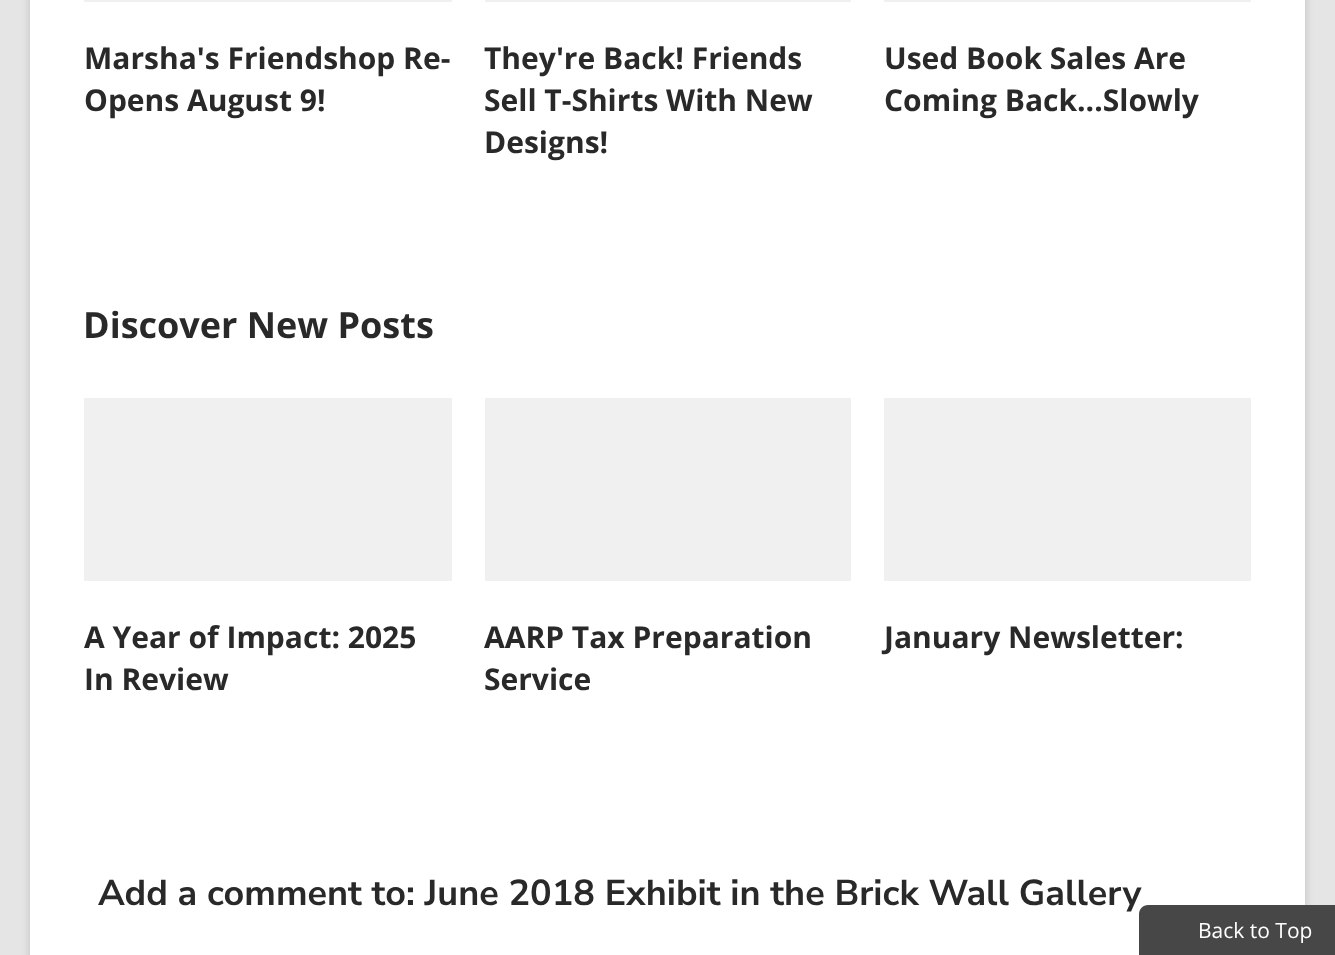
<svg xmlns="http://www.w3.org/2000/svg" width="1335" height="955" viewBox="0 0 1335 955">
  <rect width="100%" height="100%" fill="rgb(229,229,229)"/>
  <rect x="30" y="-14" width="1275" height="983" fill="rgba(0,0,0,0.16)" filter="blur(4.5px)"/>
  <rect x="30" y="0" width="1275" height="955" fill="rgb(255,255,255)"/>
  <rect x="84" y="0" width="368" height="2" fill="rgb(240,240,240)"/>
  <g font-family="Open Sans" font-size="30" font-weight="bold" fill="rgb(41,41,41)">
    <text>
      <tspan x="84" y="69">Marsha's Friendshop Re-</tspan>
      <tspan x="84" y="111">Opens August 9!</tspan>
    </text>
  </g>
  <rect x="485" y="0" width="366" height="2" fill="rgb(240,240,240)"/>
  <g font-family="Open Sans" font-size="30" font-weight="bold" fill="rgb(41,41,41)">
    <text>
      <tspan x="484" y="69">They're Back! Friends</tspan>
      <tspan x="484" y="111">Sell T-Shirts With New</tspan>
      <tspan x="484" y="153">Designs!</tspan>
    </text>
  </g>
  <rect x="884" y="0" width="367" height="2" fill="rgb(240,240,240)"/>
  <g font-family="Open Sans" font-size="30" font-weight="bold" fill="rgb(41,41,41)">
    <text>
      <tspan x="884" y="69">Used Book Sales Are</tspan>
      <tspan x="884" y="111">Coming Back...Slowly</tspan>
    </text>
  </g>
  <text x="83" y="338" font-family="Open Sans" font-size="36" font-weight="bold" fill="rgb(41,41,41)">Discover New Posts</text>
  <rect x="84" y="398" width="368" height="183" fill="rgb(240,240,240)"/>
  <g font-family="Open Sans" font-size="30" font-weight="bold" fill="rgb(41,41,41)">
    <text>
      <tspan x="84" y="648">A Year of Impact: 2025</tspan>
      <tspan x="84" y="690">In Review</tspan>
    </text>
  </g>
  <rect x="485" y="398" width="366" height="183" fill="rgb(240,240,240)"/>
  <g font-family="Open Sans" font-size="30" font-weight="bold" fill="rgb(41,41,41)">
    <text>
      <tspan x="484" y="648">AARP Tax Preparation</tspan>
      <tspan x="484" y="690">Service</tspan>
    </text>
  </g>
  <rect x="884" y="398" width="367" height="183" fill="rgb(240,240,240)"/>
  <text x="884" y="648" font-family="Open Sans" font-size="30" font-weight="bold" fill="rgb(41,41,41)">January Newsletter:</text>
  <text x="98" y="905" font-family="Nunito Sans" font-size="36" font-weight="bold" fill="rgb(41,41,41)">Add a comment to: June 2018 Exhibit in the Brick Wall Gallery</text>
  <path d="M1148 905H1335V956H1139V914C1139 909 1143 905 1148 905Z" fill="rgb(71,71,71)"/>
  <text x="1198" y="938" font-family="Open Sans" font-size="21" fill="rgb(255,255,255)">Back to Top</text>
</svg>
